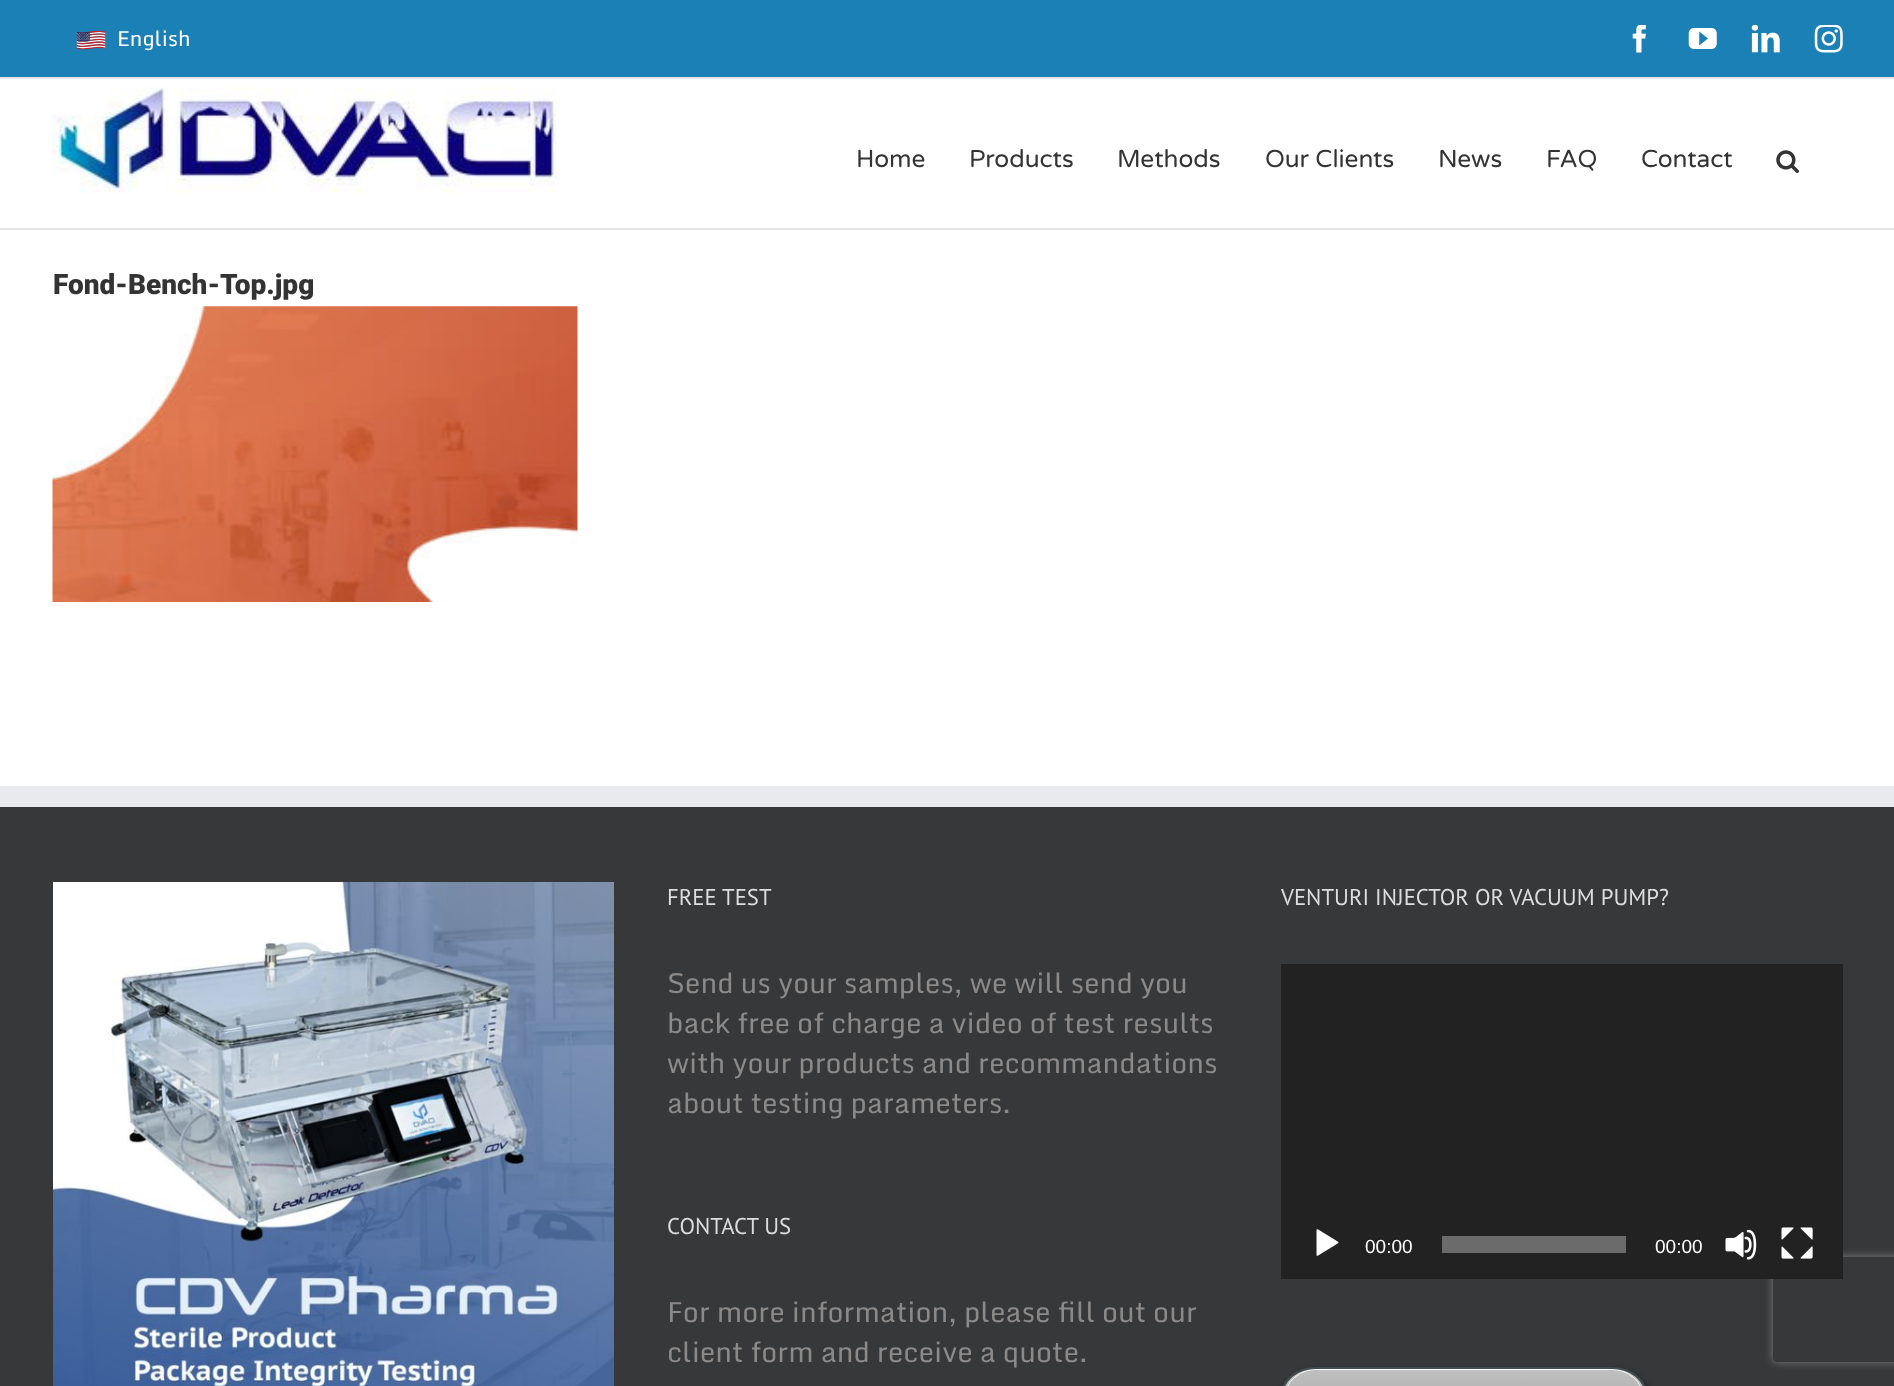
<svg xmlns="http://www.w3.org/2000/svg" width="1894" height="1386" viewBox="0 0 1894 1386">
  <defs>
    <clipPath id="clip1"><path d="M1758 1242H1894V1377H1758ZM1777 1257H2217C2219 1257 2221 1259 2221 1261V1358C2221 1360 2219 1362 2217 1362H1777C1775 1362 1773 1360 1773 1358V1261C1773 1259 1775 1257 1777 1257Z" clip-rule="evenodd"/></clipPath>
    <clipPath id="clip2"><rect x="1281" y="1367" width="366" height="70" rx="35"/></clipPath>
    <linearGradient id="g1" gradientUnits="userSpaceOnUse" x1="1464" y1="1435" x2="1464" y2="1369"><stop offset="0" stop-color="rgb(158,158,158)"/><stop offset="1" stop-color="rgb(192,192,192)"/></linearGradient>
  </defs>
  <rect width="100%" height="100%" fill="rgb(255,255,255)"/>
  <rect x="0" y="0" width="1894" height="77" fill="rgb(26,128,182)"/>
  <rect x="0" y="77" width="1894" height="2" fill="rgb(229,229,229)"/>
  <image x="76" y="30" width="30" height="20" href="pic1.png"/>
  <text x="117" y="46" font-family="Monda" font-size="21" fill="rgb(255,255,255)">English</text>
  <image x="1632" y="25" width="14" height="28" href="pic2.png"/>
  <image x="1688" y="28" width="29" height="21" href="pic3.png"/>
  <image x="1751" y="25" width="29" height="28" href="pic4.png"/>
  <image x="1814" y="25" width="29" height="28" href="pic5.png"/>
  <rect x="0" y="228" width="1894" height="2" fill="rgb(229,229,229)"/>
  <image x="52" y="87" width="505" height="106" href="pic6.png"/>
  <g font-family="Varela Round" font-size="24.5" fill="rgb(51,51,51)">
    <text x="856" y="167">Home</text>
    <text x="969" y="167">Products</text>
    <text x="1117" y="167">Methods</text>
    <text x="1265" y="167">Our Clients</text>
    <text x="1438" y="167">News</text>
    <text x="1546" y="167">FAQ</text>
    <text x="1641" y="167">Contact</text>
  </g>
  <image x="1776" y="150" width="23" height="23" href="pic7.png"/>
  <text x="53" y="294" font-family="Roboto" font-size="28" font-weight="900" fill="rgb(51,51,51)">Fond-Bench-Top.jpg</text>
  <image x="52" y="306" width="526" height="296" href="pic8.png"/>
  <rect x="0" y="807" width="1894" height="579" fill="rgb(54,56,57)"/>
  <rect x="0" y="786" width="1894" height="21" fill="rgb(233,234,238)"/>
  <image x="53" y="882" width="561" height="504" href="pic9.png"/>
  <text x="667" y="905" font-family="PT Sans" font-size="22.75" fill="rgb(221,221,221)">FREE TEST</text>
  <g font-family="Monda" font-size="28" fill="rgb(140,137,137)">
    <text>
      <tspan x="667" y="993">Send us your samples, we will send you</tspan>
      <tspan x="667" y="1033">back free of charge a video of test results</tspan>
      <tspan x="667" y="1073">with your products and recommandations</tspan>
      <tspan x="667" y="1113">about testing parameters.</tspan>
    </text>
  </g>
  <text x="667" y="1234" font-family="PT Sans" font-size="22.75" fill="rgb(221,221,221)">CONTACT US</text>
  <g font-family="Monda" font-size="28" fill="rgb(140,137,137)">
    <text>
      <tspan x="667" y="1322">For more information, please fill out our</tspan>
      <tspan x="667" y="1362">client form and receive a quote.</tspan>
    </text>
  </g>
  <text x="1281" y="905" font-family="PT Sans" font-size="22.75" fill="rgb(221,221,221)">VENTURI INJECTOR OR VACUUM PUMP?</text>
  <rect x="1281" y="964" width="562" height="245" fill="rgb(34,34,34)"/>
  <g clip-path="url(#clip1)">
    <rect x="1773" y="1257" width="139" height="105" rx="4" fill="rgb(128,128,128)" filter="blur(4.5px)"/>
  </g>
  <rect x="1281" y="1209" width="562" height="70" fill="rgb(34,34,34)"/>
  <image x="1316" y="1229" width="23" height="27" href="pic10.png"/>
  <text x="1365" y="1253" font-family="Liberation Sans" font-size="19" fill="rgb(255,255,255)">00:00</text>
  <rect x="1442" y="1236" width="184" height="17" fill="rgb(107,107,107)"/>
  <text x="1655" y="1253" font-family="Liberation Sans" font-size="19" fill="rgb(255,255,255)">00:00</text>
  <image x="1725" y="1229" width="32" height="31" href="pic11.png"/>
  <image x="1781" y="1227" width="32" height="32" href="pic12.png"/>
  <rect x="1279" y="1369" width="373" height="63" rx="38.5" fill="rgba(0,0,0,0.3)" filter="blur(2.5px)"/>
  <g clip-path="url(#clip2)">
    <rect x="1285" y="1369" width="358" height="17" fill="url(#g1)"/>
  </g>
  <path d="M1316 1370H1612C1630 1370 1644 1384 1645 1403V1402C1645 1384 1630 1369 1612 1369H1316C1298 1369 1283 1384 1283 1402V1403C1284 1384 1298 1370 1316 1370Z" fill="rgb(255,255,255)"/>
  <rect x="1282" y="1368" width="364" height="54" rx="34" fill="none" stroke="rgb(67,76,80)" stroke-width="2"/>
</svg>
